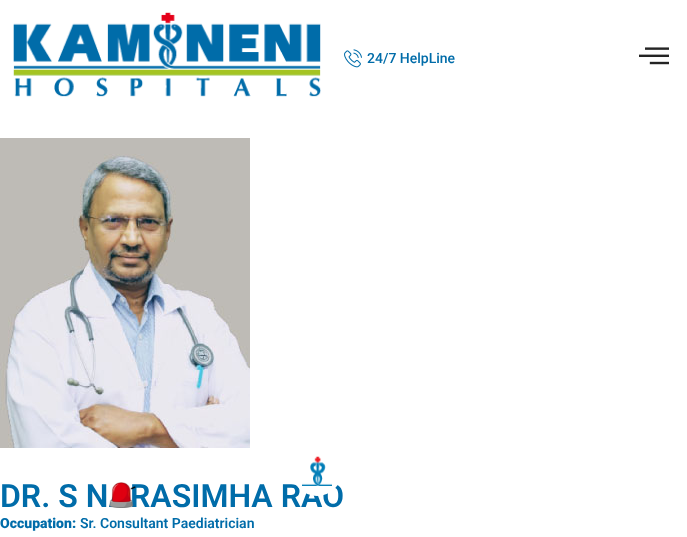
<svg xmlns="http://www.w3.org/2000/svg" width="687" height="537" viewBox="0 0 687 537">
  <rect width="100%" height="100%" fill="rgb(255,255,255)"/>
  <image x="13" y="12" width="308" height="85" href="pic1.png"/>
  <image x="344" y="49" width="18" height="19" href="pic2.png"/>
  <text x="367" y="63" font-family="Roboto" font-size="14" font-weight="500" fill="rgb(0,108,169)">24/7 HelpLine</text>
  <image x="639" y="47" width="30" height="18" href="pic3.png"/>
  <text x="0" y="507" font-family="Roboto" font-size="32" font-weight="600" fill="rgb(0,108,169)">DR. S NARASIMHA RAO</text>
  <image x="109" y="482" width="27" height="26" href="pic4.png"/>
  <circle cx="317" cy="471" r="25" fill="rgb(255,255,255)"/>
  <image x="302" y="456" width="30" height="30" href="pic5.png"/>
  <image x="0" y="138" width="250" height="310" href="pic6.png"/>
  <text x="0" y="528" font-family="Roboto" font-size="14" font-weight="900" fill="rgb(0,108,169)">Occupation:</text>
  <text x="80" y="528" font-family="Roboto" font-size="14" font-weight="600" fill="rgb(0,108,169)">Sr. Consultant Paediatrician</text>
</svg>
